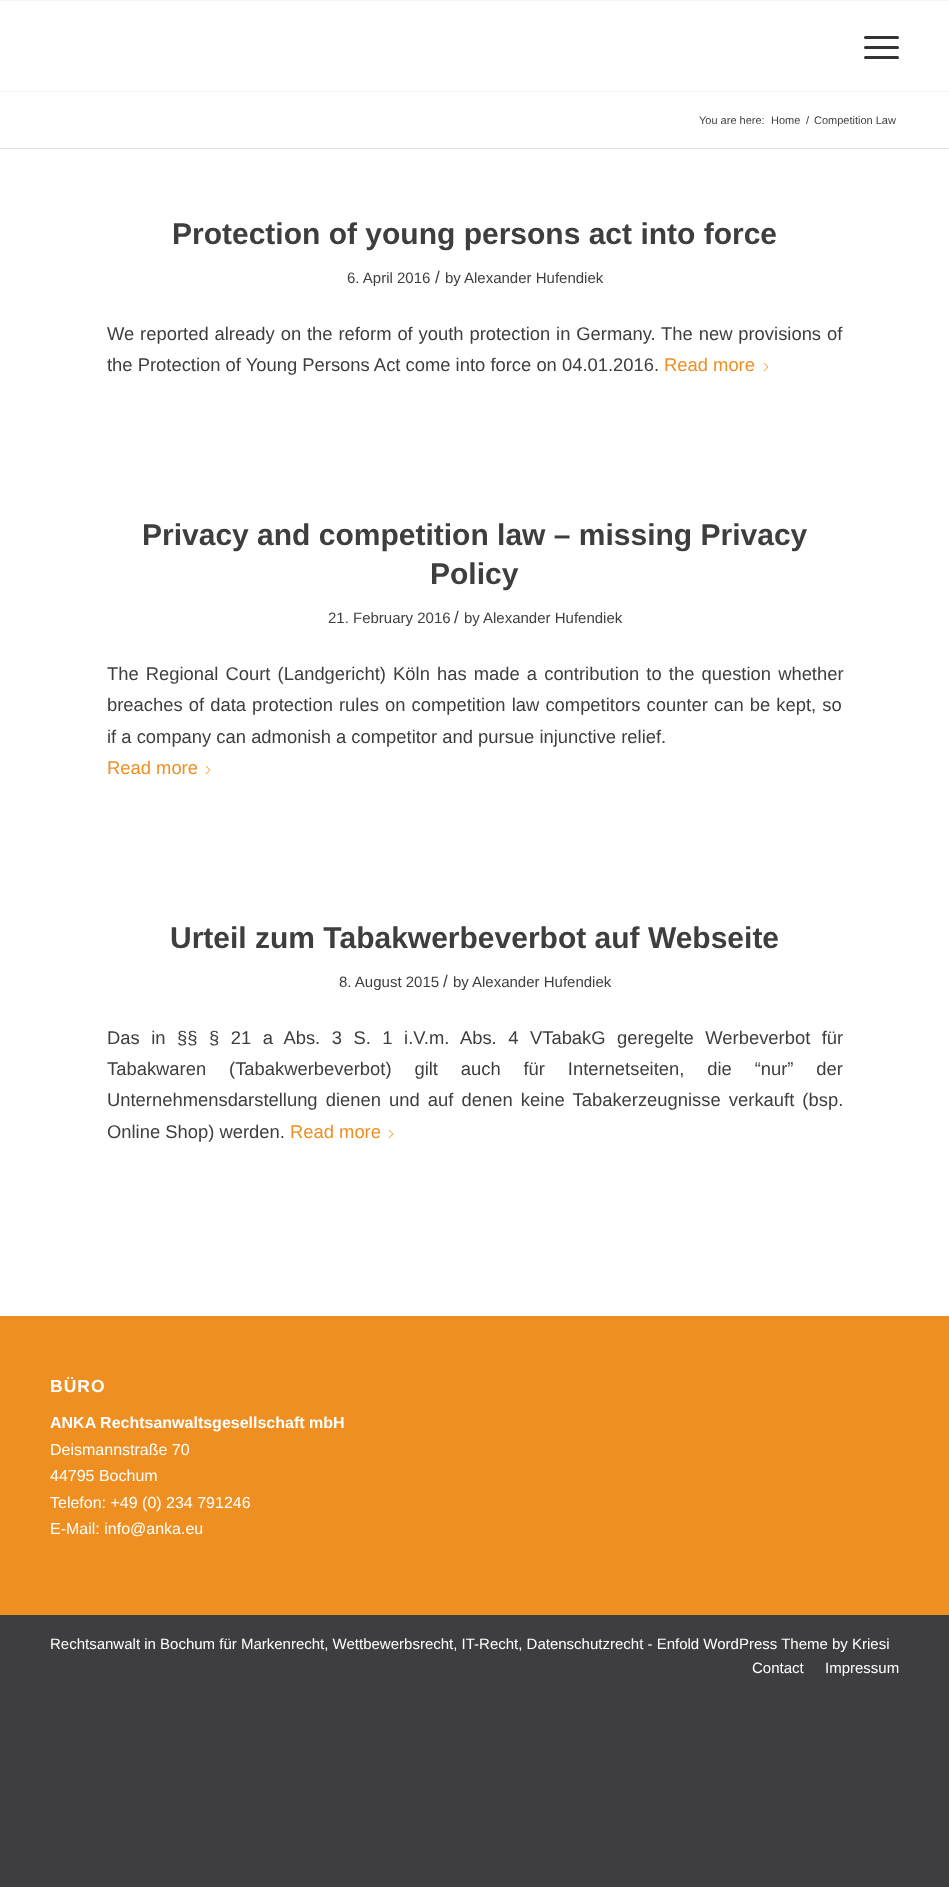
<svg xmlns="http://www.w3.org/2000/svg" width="949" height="1887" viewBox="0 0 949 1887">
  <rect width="100%" height="100%" fill="rgb(62,61,64)"/>
  <rect x="0" y="1" width="949" height="1315" fill="rgb(255,255,255)"/>
  <rect x="0" y="0" width="949" height="1" fill="rgb(246,246,246)"/>
  <rect x="0" y="91" width="949" height="1" fill="rgb(246,246,246)"/>
  <rect x="864" y="46" width="35" height="3" rx="1.5" fill="rgb(51,51,51)"/>
  <rect x="864" y="36" width="35" height="3" rx="1.5" fill="rgb(51,51,51)"/>
  <rect x="864" y="56" width="35" height="3" rx="1.5" fill="rgb(51,51,51)"/>
  <g font-family="Liberation Sans" font-size="11" fill="rgb(62,61,64)">
    <text x="699" y="124">You are here:</text>
    <text x="771" y="124">Home</text>
    <text x="806" y="124">/</text>
    <text x="814" y="124">Competition Law</text>
  </g>
  <rect x="0" y="148" width="949" height="1" fill="rgb(225,225,225)"/>
  <text x="172" y="244" font-family="Liberation Sans" font-size="30" font-weight="bold" fill="rgb(62,61,64)">Protection of young persons act into force</text>
  <text x="347" y="283" font-family="Liberation Sans" font-size="15" fill="rgb(62,61,64)">6. April 2016</text>
  <text x="435" y="283" font-family="Liberation Sans" font-size="17" fill="rgb(62,61,64)">/</text>
  <g font-family="Liberation Sans" font-size="15" fill="rgb(62,61,64)">
    <text x="445" y="283">by</text>
    <text x="464" y="283">Alexander Hufendiek</text>
  </g>
  <g font-family="Liberation Sans" font-size="18.4" fill="rgb(62,61,64)">
    <text>
      <tspan x="107" y="340" word-spacing="0.75">We reported already on the reform of youth protection in Germany. The new provisions of</tspan>
      <tspan x="107" y="371">the Protection of Young Persons Act come into force on 04.01.2016.</tspan>
    </text>
  </g>
  <text x="664" y="371" font-family="Liberation Sans" font-size="18.4" fill="rgb(239,143,33)">Read more</text>
  <image x="763" y="362" width="6" height="10" href="pic1.png"/>
  <g font-family="Liberation Sans" font-size="30" font-weight="bold" fill="rgb(62,61,64)">
    <text x="142" y="545">Privacy and competition law – missing Privacy</text>
    <text x="430" y="584">Policy</text>
  </g>
  <text x="328" y="623" font-family="Liberation Sans" font-size="15" fill="rgb(62,61,64)">21. February 2016</text>
  <text x="454" y="623" font-family="Liberation Sans" font-size="17" fill="rgb(62,61,64)">/</text>
  <g font-family="Liberation Sans" font-size="15" fill="rgb(62,61,64)">
    <text x="464" y="623">by</text>
    <text x="483" y="623">Alexander Hufendiek</text>
  </g>
  <g font-family="Liberation Sans" font-size="18.4" fill="rgb(62,61,64)">
    <text>
      <tspan x="107" y="680" word-spacing="2">The Regional Court (Landgericht) Köln has made a contribution to the question whether</tspan>
      <tspan x="107" y="711" word-spacing="1">breaches of data protection rules on competition law competitors counter can be kept, so</tspan>
      <tspan x="107" y="743">if a company can admonish a competitor and pursue injunctive relief.</tspan>
    </text>
  </g>
  <text x="107" y="774" font-family="Liberation Sans" font-size="18.4" fill="rgb(239,143,33)">Read more</text>
  <image x="205" y="765" width="6" height="10" href="pic1.png"/>
  <text x="170" y="948" font-family="Liberation Sans" font-size="30" font-weight="bold" fill="rgb(62,61,64)">Urteil zum Tabakwerbeverbot auf Webseite</text>
  <text x="339" y="987" font-family="Liberation Sans" font-size="15" fill="rgb(62,61,64)">8. August 2015</text>
  <text x="443" y="987" font-family="Liberation Sans" font-size="17" fill="rgb(62,61,64)">/</text>
  <g font-family="Liberation Sans" font-size="15" fill="rgb(62,61,64)">
    <text x="453" y="987">by</text>
    <text x="472" y="987">Alexander Hufendiek</text>
  </g>
  <g font-family="Liberation Sans" font-size="18.4" fill="rgb(62,61,64)">
    <text>
      <tspan x="107" y="1044" word-spacing="6.4">Das in §§ § 21 a Abs. 3 S. 1 i.V.m. Abs. 4 VTabakG geregelte Werbeverbot für</tspan>
      <tspan x="107" y="1075" word-spacing="17.75">Tabakwaren (Tabakwerbeverbot) gilt auch für Internetseiten, die “nur” der</tspan>
      <tspan x="107" y="1106" word-spacing="3">Unternehmensdarstellung dienen und auf denen keine Tabakerzeugnisse verkauft (bsp.</tspan>
      <tspan x="107" y="1138">Online Shop) werden.</tspan>
    </text>
  </g>
  <text x="290" y="1138" font-family="Liberation Sans" font-size="18.4" fill="rgb(239,143,33)">Read more</text>
  <image x="388" y="1129" width="6" height="10" href="pic1.png"/>
  <rect x="0" y="1316" width="949" height="299" fill="rgb(239,143,33)"/>
  <text x="50" y="1392" font-family="Liberation Sans" font-size="17.5" font-weight="bold" letter-spacing="1" fill="rgb(255,255,255)">BÜRO</text>
  <text x="50" y="1428" font-family="Liberation Sans" font-size="16" font-weight="bold" fill="rgb(255,255,255)">ANKA Rechtsanwaltsgesellschaft mbH</text>
  <g font-family="Liberation Sans" font-size="16" fill="rgb(255,255,255)">
    <text>
      <tspan x="50" y="1455">Deismannstraße 70</tspan>
      <tspan x="50" y="1481">44795 Bochum</tspan>
      <tspan x="50" y="1508">Telefon: +49 (0) 234 791246</tspan>
      <tspan x="50" y="1534">E-Mail: info@anka.eu</tspan>
    </text>
  </g>
  <g font-family="Liberation Sans" font-size="15" fill="rgb(255,255,255)">
    <text x="50" y="1649">Rechtsanwalt in Bochum für Markenrecht, Wettbewerbsrecht, IT-Recht, Datenschutzrecht - Enfold WordPress Theme by Kriesi</text>
    <text x="752" y="1673">Contact</text>
    <text x="825" y="1673">Impressum</text>
  </g>
</svg>
